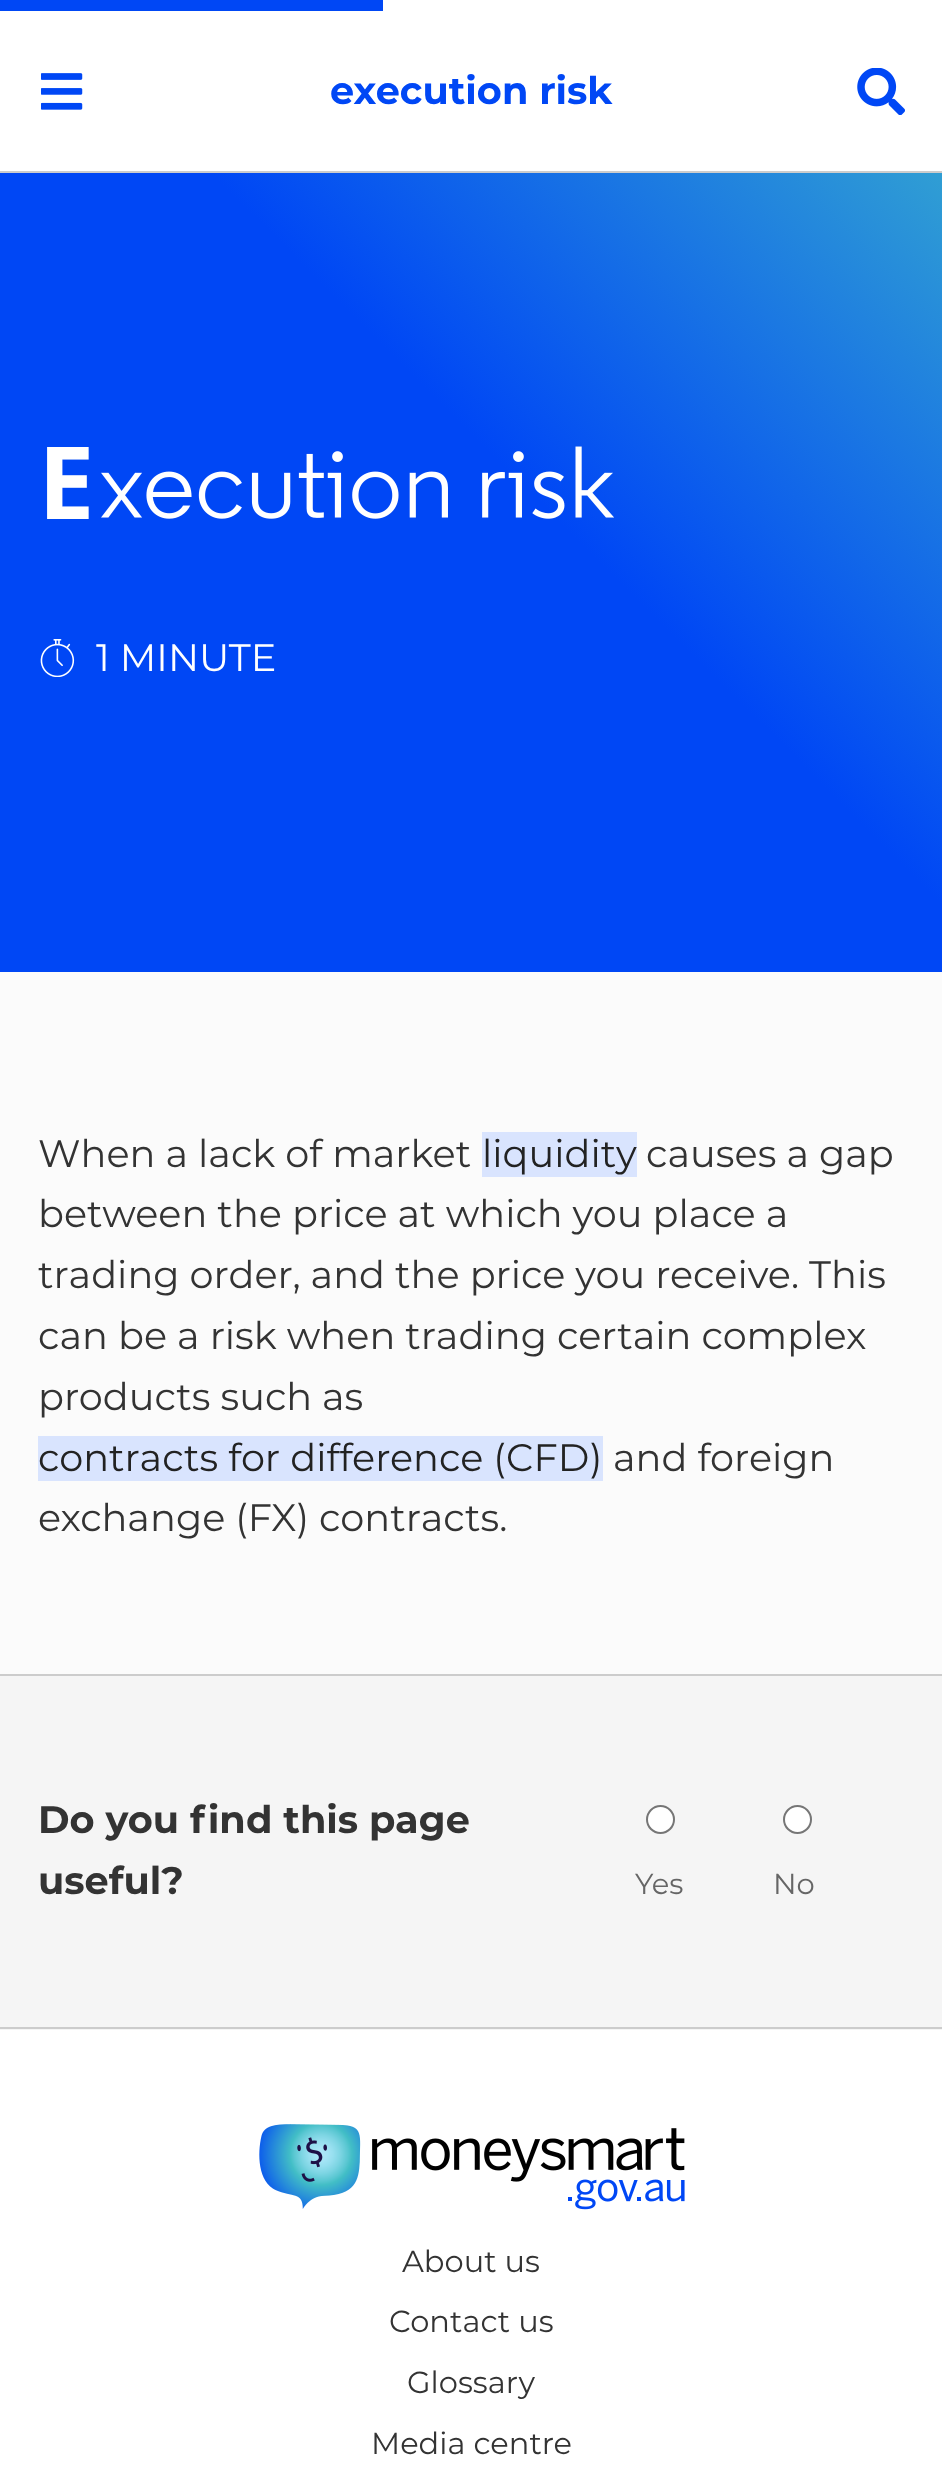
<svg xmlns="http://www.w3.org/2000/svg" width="942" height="2480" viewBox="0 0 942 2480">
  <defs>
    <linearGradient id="g1" gradientUnits="userSpaceOnUse" x1="-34" y1="938" x2="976" y2="-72"><stop offset="0" stop-color="rgb(0,71,245)"/><stop offset="0.5" stop-color="rgb(0,71,245)"/><stop offset="1" stop-color="rgb(66,191,199)"/></linearGradient>
  </defs>
  <rect width="100%" height="100%" fill="rgb(251,251,251)"/>
  <rect x="0" y="0" width="942" height="171" fill="rgb(255,255,255)"/>
  <rect x="0" y="171" width="942" height="2" fill="rgb(204,204,204)"/>
  <rect x="0" y="0" width="383" height="11" fill="rgb(0,71,245)"/>
  <image x="41" y="73" width="42" height="37" href="pic1.png"/>
  <text x="330" y="104" font-family="Montserrat" font-size="38.25" font-weight="bold" fill="rgb(0,71,245)">execution risk</text>
  <image x="857" y="68" width="48" height="47" href="pic2.png"/>
  <rect x="0" y="173" width="942" height="799" fill="url(#g1)"/>
  <text x="38" y="519" font-family="Noto Sans" font-size="101" font-weight="bold" fill="rgb(255,255,255)">E</text>
  <image x="101" y="446" width="513" height="73" href="pic3.png"/>
  <image x="40" y="639" width="35" height="38" href="pic4.png"/>
  <text x="96" y="671" font-family="Montserrat" font-size="38.25" fill="rgb(255,255,255)">1 MINUTE</text>
  <text x="38" y="1167" font-family="Montserrat" font-size="38.25" fill="rgb(51,51,51)">When a lack of market</text>
  <rect x="482" y="1132" width="155" height="45" fill="rgb(217,228,254)"/>
  <text x="482" y="1167" font-family="Montserrat" font-size="38.25" fill="rgb(34,34,34)">liquidity</text>
  <g font-family="Montserrat" font-size="38.25" fill="rgb(51,51,51)">
    <text x="646" y="1167">causes a gap</text>
    <text>
      <tspan x="38" y="1227">between the price at which you place a</tspan>
      <tspan x="38" y="1288">trading order, and the price you receive. This</tspan>
      <tspan x="38" y="1349">can be a risk when trading certain complex</tspan>
      <tspan x="38" y="1410">products such as</tspan>
    </text>
  </g>
  <rect x="38" y="1436" width="565" height="45" fill="rgb(217,228,254)"/>
  <text x="38" y="1471" font-family="Montserrat" font-size="38.25" fill="rgb(34,34,34)">contracts for difference (CFD)</text>
  <g font-family="Montserrat" font-size="38.25" fill="rgb(51,51,51)">
    <text x="613" y="1471">and foreign</text>
    <text x="38" y="1531">exchange (FX) contracts.</text>
  </g>
  <rect x="0" y="1676" width="942" height="354" fill="rgb(245,245,245)"/>
  <rect x="0" y="1674" width="942" height="2" fill="rgb(204,204,204)"/>
  <rect x="0" y="2027" width="942" height="2" fill="rgb(204,204,204)"/>
  <g font-family="Montserrat" font-size="38.25" font-weight="bold" fill="rgb(51,51,51)">
    <text>
      <tspan x="38" y="1833">Do you find this page</tspan>
      <tspan x="38" y="1894">useful?</tspan>
    </text>
  </g>
  <circle cx="660.5" cy="1819.5" r="13.5" fill="rgb(255,255,255)" stroke="rgb(118,118,118)" stroke-width="2"/>
  <text x="635" y="1894" font-family="Montserrat" font-size="29" fill="rgb(102,102,102)">Yes</text>
  <circle cx="797.5" cy="1819.5" r="13.5" fill="rgb(255,255,255)" stroke="rgb(118,118,118)" stroke-width="2"/>
  <text x="773" y="1894" font-family="Montserrat" font-size="29" fill="rgb(102,102,102)">No</text>
  <rect x="0" y="2030" width="942" height="450" fill="rgb(255,255,255)"/>
  <image x="259" y="2124" width="426" height="86" href="pic5.png"/>
  <g font-family="Montserrat" font-size="30.5" fill="rgb(51,51,51)">
    <text x="402" y="2272">About us</text>
    <text x="389" y="2332">Contact us</text>
    <text x="407" y="2393">Glossary</text>
    <text x="371" y="2454">Media centre</text>
  </g>
</svg>
